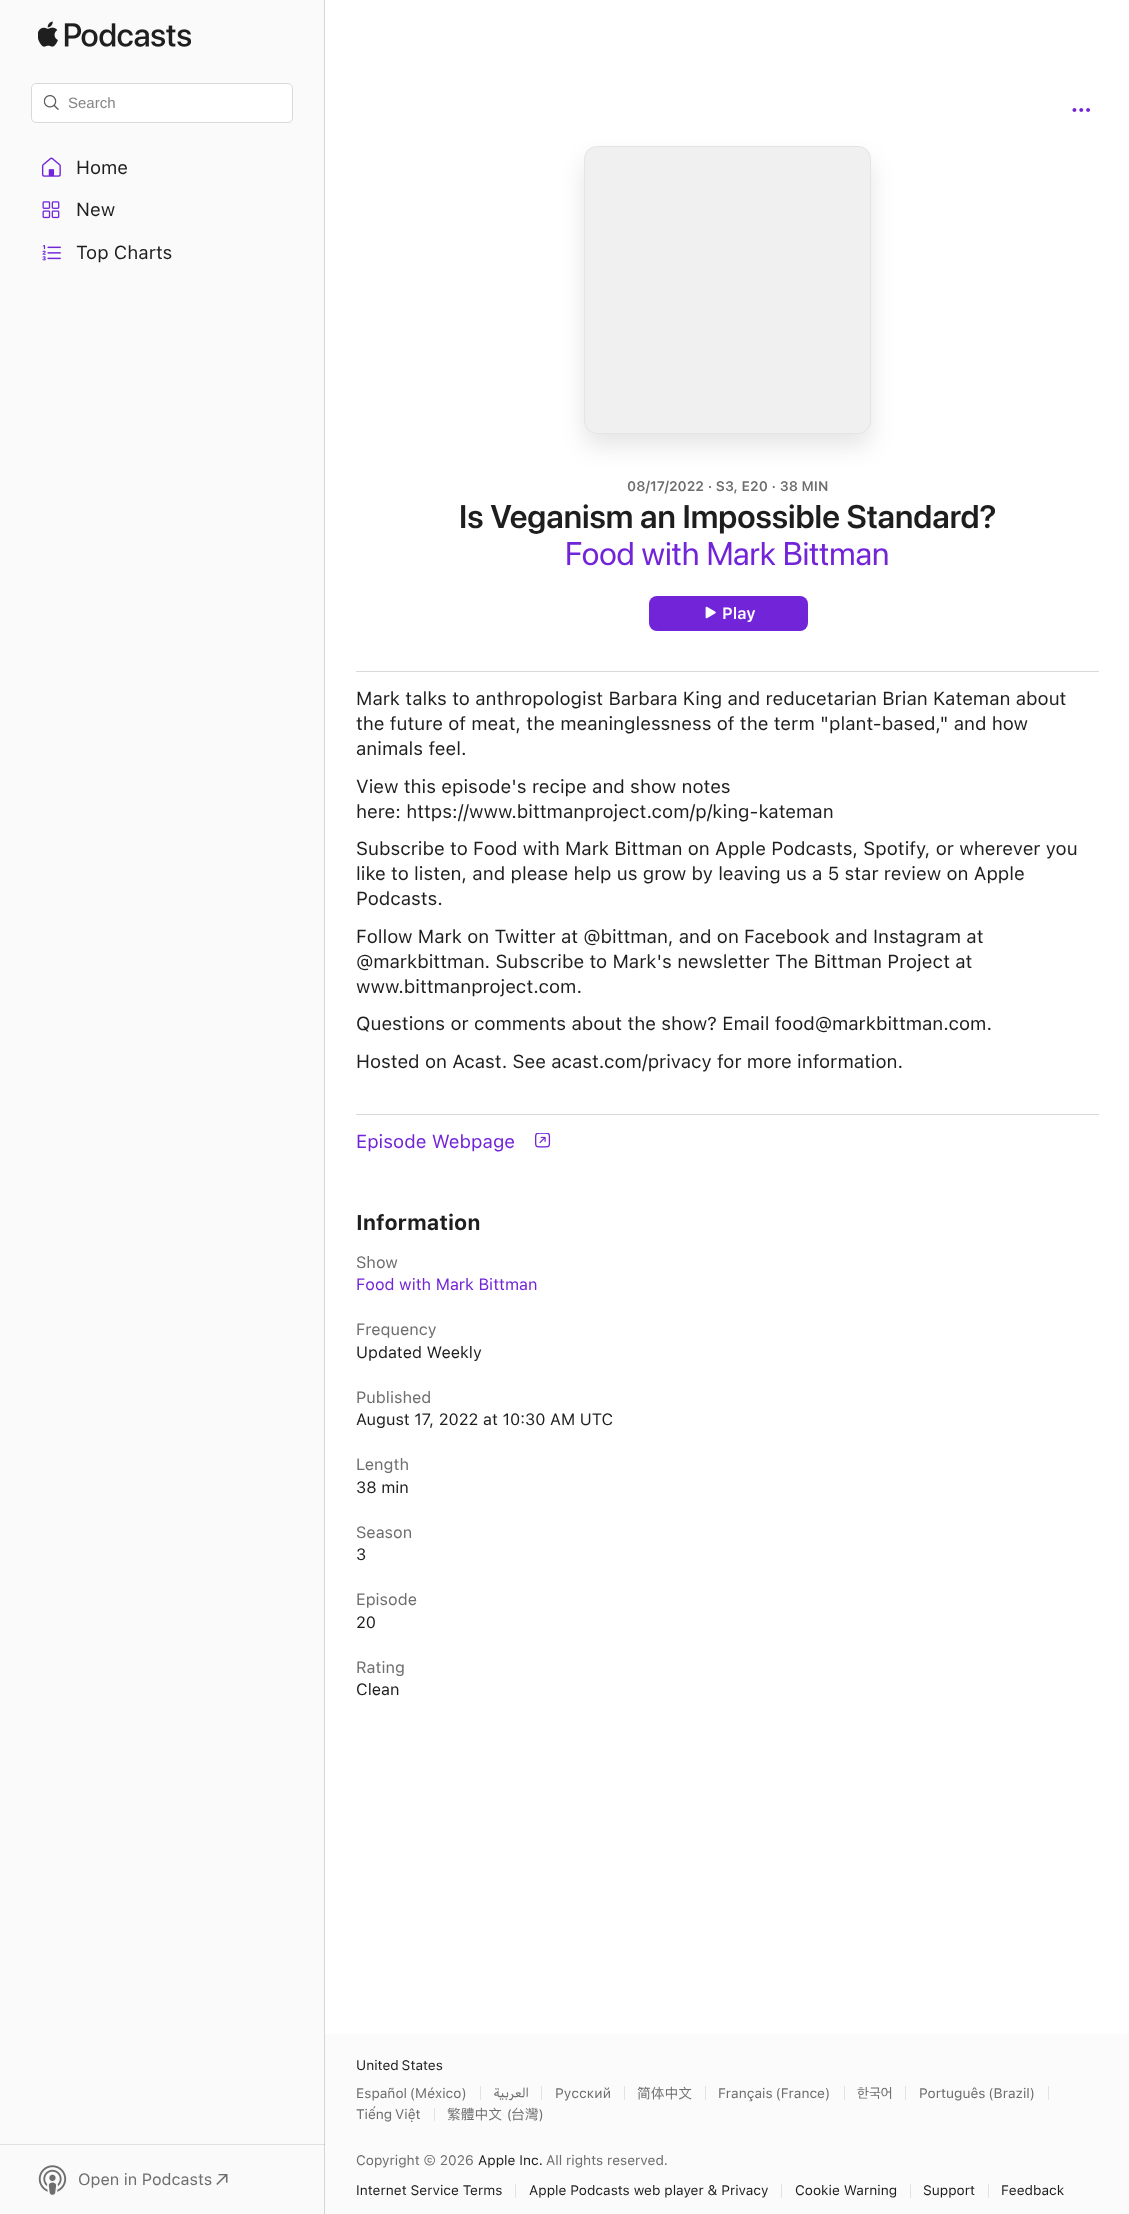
<svg xmlns="http://www.w3.org/2000/svg" width="1129" height="2214" viewBox="0 0 1129 2214">
  <rect width="100%" height="100%" fill="rgb(255,255,255)"/>
  <rect x="0" y="0" width="324" height="2214" fill="rgb(250,250,250)"/>
  <rect x="0" y="2144" width="325" height="1" fill="rgb(225,225,225)"/>
  <rect x="324" y="0" width="1" height="2214" fill="rgb(213,213,213)"/>
  <rect x="324" y="2144" width="1" height="1" fill="rgb(192,192,192)"/>
  <image x="38" y="21" width="153" height="26" href="pic1.png"/>
  <rect x="31.5" y="83.5" width="261" height="39" rx="4.5" fill="rgb(255,255,255)" stroke="rgb(217,217,217)"/>
  <image x="44" y="95" width="15" height="15" href="pic2.png"/>
  <text x="68" y="108" font-family="Liberation Sans" font-size="15" fill="rgb(133,133,133)">Search</text>
  <image x="41" y="157" width="20" height="20" href="pic3.png"/>
  <text x="76" y="174" font-family="SF" font-size="18.75" fill="rgb(30,30,30)">Home</text>
  <image x="42" y="201" width="18" height="18" href="pic4.png"/>
  <text x="76" y="216" font-family="SF" font-size="18.75" fill="rgb(30,30,30)">New</text>
  <image x="42" y="245" width="19" height="16" href="pic5.png"/>
  <text x="76" y="259" font-family="SF" font-size="18.75" fill="rgb(30,30,30)">Top Charts</text>
  <image x="38" y="2165" width="29" height="30" href="pic6.png"/>
  <text x="78" y="2185" font-family="SF" font-size="16.25" fill="rgb(110,110,110)">Open in Podcasts</text>
  <image x="216" y="2174" width="12" height="11" href="pic7.png"/>
  <image x="1072" y="108" width="18" height="4" href="pic8.png"/>
  <rect x="584" y="159" width="287" height="287" rx="13" fill="rgba(0,0,0,0.1)" filter="blur(12.5px)"/>
  <rect x="584" y="146" width="287" height="288" rx="13" fill="rgb(240,240,240)"/>
  <rect x="584.5" y="146.5" width="286" height="287" rx="12.5" fill="none" stroke="rgba(128,128,128,0.1)"/>
  <text x="627" y="491" font-family="SF" font-size="13.75" font-weight="600" fill="rgb(110,110,110)">08/17/2022 · S3, E20 · 38 MIN</text>
  <text x="459" y="528" font-family="'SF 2'" font-size="32.5" font-weight="600" fill="rgb(30,30,30)">Is Veganism an Impossible Standard?</text>
  <text x="565" y="565" font-family="'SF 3'" font-size="32.5" fill="rgb(114,36,216)">Food with Mark Bittman</text>
  <rect x="649" y="596" width="159" height="35" rx="8" fill="rgb(114,36,216)"/>
  <image x="705" y="606" width="11" height="13" href="pic9.png"/>
  <text x="722" y="619" font-family="SF" font-size="16.25" font-weight="600" fill="rgb(255,255,255)">Play</text>
  <rect x="356" y="671" width="743" height="1" fill="rgb(217,217,217)"/>
  <g font-family="SF" font-size="18.75" fill="rgb(30,30,30)">
    <text>
      <tspan x="356" y="705">Mark talks to anthropologist Barbara King and reducetarian Brian Kateman about</tspan>
      <tspan x="356" y="730">the future of meat, the meaninglessness of the term "plant-based," and how</tspan>
      <tspan x="356" y="755">animals feel.</tspan>
    </text>
    <text>
      <tspan x="356" y="793">View this episode's recipe and show notes</tspan>
      <tspan x="356" y="818">here: https://www.bittmanproject.com/p/king-kateman</tspan>
      <tspan x="356" y="855">Subscribe to Food with Mark Bittman on Apple Podcasts, Spotify, or wherever you</tspan>
      <tspan x="356" y="880">like to listen, and please help us grow by leaving us a 5 star review on Apple</tspan>
      <tspan x="356" y="905">Podcasts.</tspan>
    </text>
    <text>
      <tspan x="356" y="943">Follow Mark on Twitter at @bittman, and on Facebook and Instagram at</tspan>
      <tspan x="356" y="968">@markbittman. Subscribe to Mark's newsletter The Bittman Project at</tspan>
      <tspan x="356" y="993">www.bittmanproject.com.</tspan>
      <tspan x="356" y="1030">Questions or comments about the show? Email food@markbittman.com.</tspan>
    </text>
    <text x="356" y="1068">Hosted on Acast. See acast.com/privacy for more information.</text>
  </g>
  <rect x="356" y="1114" width="743" height="1" fill="rgb(217,217,217)"/>
  <text x="356" y="1148" font-family="SF" font-size="18.75" fill="rgb(114,36,216)">Episode Webpage</text>
  <image x="535" y="1133" width="16" height="15" href="pic10.png"/>
  <text x="356" y="1230" font-family="SF" font-size="21.25" font-weight="bold" fill="rgb(30,30,30)">Information</text>
  <text x="356" y="1268" font-family="SF" font-size="16.25" fill="rgb(110,110,110)">Show</text>
  <text x="356" y="1290" font-family="SF" font-size="16.25" fill="rgb(114,36,216)">Food with Mark Bittman</text>
  <text x="356" y="1335" font-family="SF" font-size="16.25" fill="rgb(110,110,110)">Frequency</text>
  <text x="356" y="1358" font-family="SF" font-size="16.25" fill="rgb(30,30,30)">Updated Weekly</text>
  <text x="356" y="1403" font-family="SF" font-size="16.25" fill="rgb(110,110,110)">Published</text>
  <text x="356" y="1425" font-family="SF" font-size="16.25" fill="rgb(30,30,30)">August 17, 2022 at 10:30 AM UTC</text>
  <text x="356" y="1470" font-family="SF" font-size="16.25" fill="rgb(110,110,110)">Length</text>
  <text x="356" y="1493" font-family="SF" font-size="16.25" fill="rgb(30,30,30)">38 min</text>
  <text x="356" y="1538" font-family="SF" font-size="16.25" fill="rgb(110,110,110)">Season</text>
  <text x="356" y="1560" font-family="SF" font-size="16.25" fill="rgb(30,30,30)">3</text>
  <text x="356" y="1605" font-family="SF" font-size="16.25" fill="rgb(110,110,110)">Episode</text>
  <text x="356" y="1628" font-family="SF" font-size="16.25" fill="rgb(30,30,30)">20</text>
  <text x="356" y="1673" font-family="SF" font-size="16.25" fill="rgb(110,110,110)">Rating</text>
  <text x="356" y="1695" font-family="SF" font-size="16.25" fill="rgb(30,30,30)">Clean</text>
  <rect x="325" y="2034" width="804" height="180" fill="rgb(251,251,251)"/>
  <text x="356" y="2070" word-spacing="-1" font-family="SF" font-size="13.75" fill="rgb(30,30,30)">United States</text>
  <text x="356" y="2098" word-spacing="-1" font-family="SF" font-size="13.75" fill="rgb(110,110,110)">Español (México)</text>
  <rect x="480" y="2086" width="1" height="14" fill="rgb(226,226,226)"/>
  <text x="529" y="2098" font-family="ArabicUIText" font-size="13.75" direction="rtl" fill="rgb(110,110,110)">العربية</text>
  <rect x="541" y="2086" width="1" height="14" fill="rgb(226,226,226)"/>
  <text x="555" y="2098" font-family="SF" font-size="13.75" fill="rgb(110,110,110)">Русский</text>
  <rect x="624" y="2086" width="1" height="14" fill="rgb(226,226,226)"/>
  <text x="637" y="2098" font-family="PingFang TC" font-size="13.75" fill="rgb(110,110,110)">简体中文</text>
  <rect x="705" y="2086" width="1" height="14" fill="rgb(226,226,226)"/>
  <text x="718" y="2098" word-spacing="-1" font-family="SF" font-size="13.75" fill="rgb(110,110,110)">Français (France)</text>
  <rect x="844" y="2086" width="1" height="14" fill="rgb(226,226,226)"/>
  <text x="857" y="2098" font-family="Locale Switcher" font-size="13.75" fill="rgb(110,110,110)">한국어</text>
  <rect x="905" y="2086" width="1" height="14" fill="rgb(226,226,226)"/>
  <text x="919" y="2098" word-spacing="-1" font-family="SF" font-size="13.75" fill="rgb(110,110,110)">Português (Brazil)</text>
  <rect x="1048" y="2086" width="1" height="14" fill="rgb(226,226,226)"/>
  <text x="356" y="2119" word-spacing="-1" font-family="SF" font-size="13.75" fill="rgb(110,110,110)">Tiếng Việt</text>
  <rect x="434" y="2108" width="1" height="13" fill="rgb(226,226,226)"/>
  <text x="447" y="2119" font-family="PingFang TC" font-size="13.75" fill="rgb(110,110,110)">繁體中文</text>
  <text x="507" y="2119" font-family="'SF 2'" font-size="13.75" fill="rgb(110,110,110)">(</text>
  <text x="511" y="2119" font-family="PingFang TC" font-size="13.75" fill="rgb(110,110,110)">台灣</text>
  <text x="539" y="2119" font-family="'SF 2'" font-size="13.75" fill="rgb(110,110,110)">)</text>
  <text x="356" y="2165" font-family="SF" font-size="13.75" fill="rgb(110,110,110)">Copyright © 2026</text>
  <text x="478" y="2165" font-family="SF" font-size="13.75" fill="rgb(30,30,30)">Apple Inc.</text>
  <text x="546" y="2165" font-family="SF" font-size="13.75" fill="rgb(110,110,110)">All rights reserved.</text>
  <text x="356" y="2195" font-family="SF" font-size="13.75" fill="rgb(30,30,30)">Internet Service Terms</text>
  <rect x="515" y="2184" width="1" height="14" fill="rgb(226,226,226)"/>
  <text x="529" y="2195" font-family="SF" font-size="13.75" fill="rgb(30,30,30)">Apple Podcasts web player &amp; Privacy</text>
  <rect x="781" y="2184" width="1" height="14" fill="rgb(226,226,226)"/>
  <text x="795" y="2195" font-family="SF" font-size="13.75" fill="rgb(30,30,30)">Cookie Warning</text>
  <rect x="910" y="2184" width="1" height="14" fill="rgb(226,226,226)"/>
  <text x="923" y="2195" font-family="SF" font-size="13.75" fill="rgb(30,30,30)">Support</text>
  <rect x="988" y="2184" width="1" height="14" fill="rgb(226,226,226)"/>
  <text x="1001" y="2195" font-family="SF" font-size="13.75" fill="rgb(30,30,30)">Feedback</text>
</svg>
